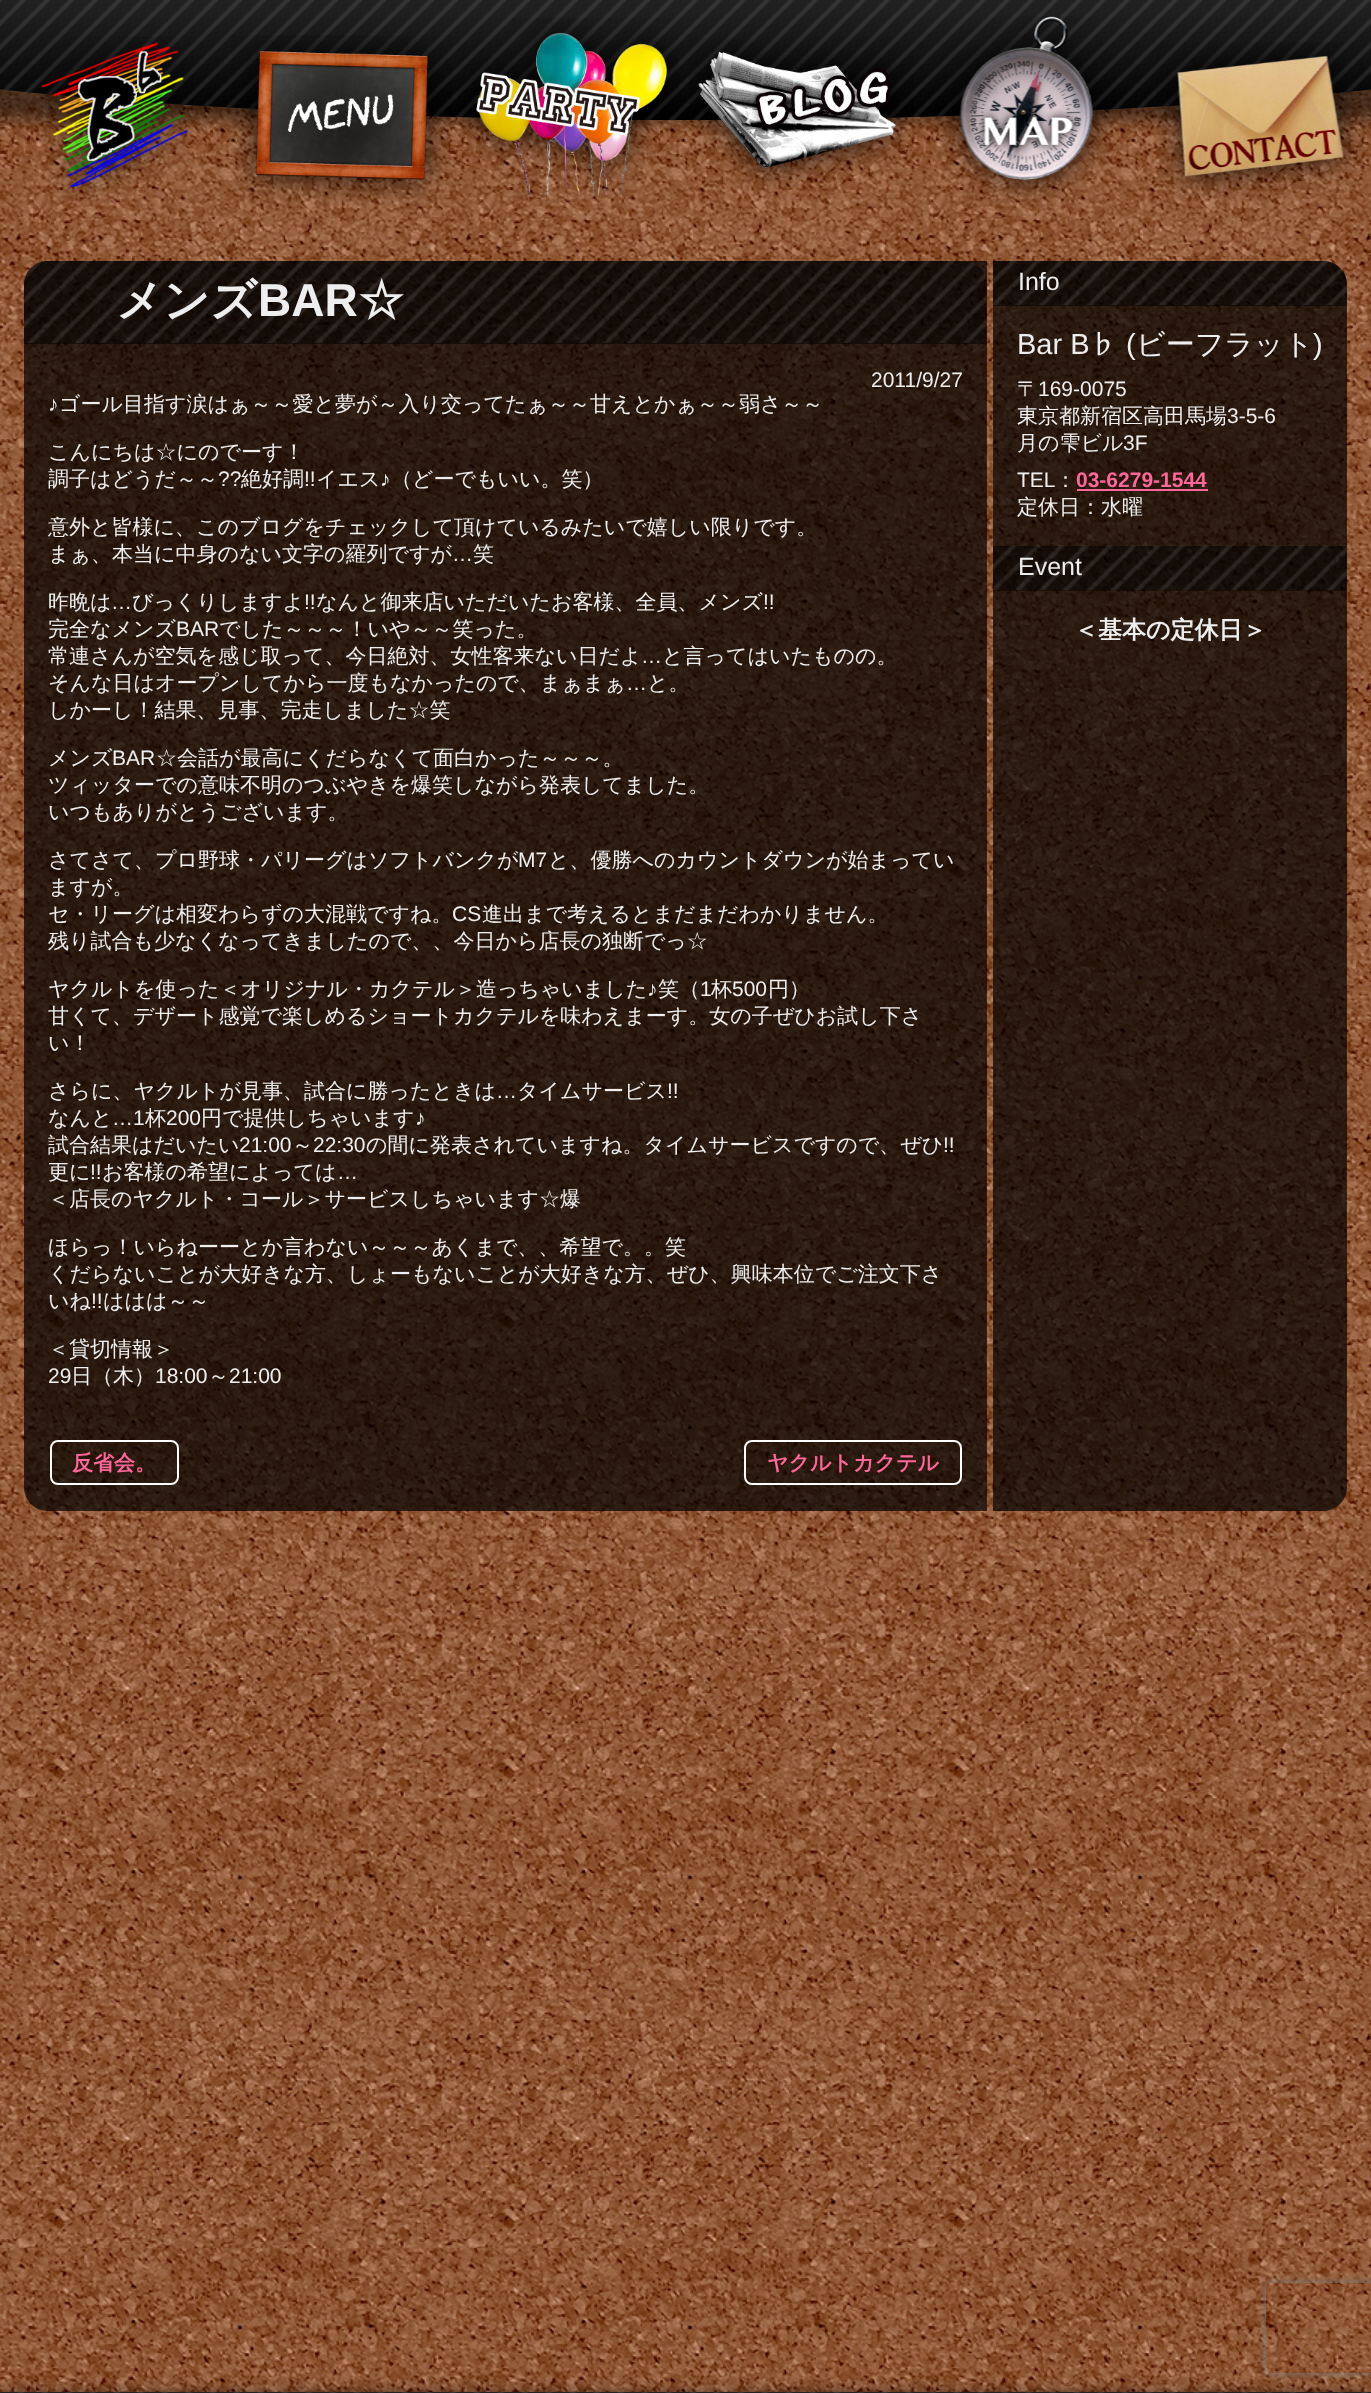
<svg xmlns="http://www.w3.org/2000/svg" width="1371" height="2393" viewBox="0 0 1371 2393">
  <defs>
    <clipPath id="clip1"><path d="M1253 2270H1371V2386H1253ZM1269 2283H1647C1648.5 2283 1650 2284.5 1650 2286V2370C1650 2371.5 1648.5 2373 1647 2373H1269C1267.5 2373 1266 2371.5 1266 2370V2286C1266 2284.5 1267.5 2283 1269 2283Z" clip-rule="evenodd"/></clipPath>
  </defs>
  <rect width="100%" height="100%" fill="rgb(255,255,255)"/>
  <image x="0" y="89" width="1371" height="2303" href="pic1.png"/>
  <rect x="-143" y="0" width="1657" height="120" rx="120" fill="rgba(0,0,0,0.5)" filter="blur(7.5px)"/>
  <path d="M-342 0H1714C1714 66 1254 120 686 120C118 120-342 66-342 0Z" fill="rgb(34,34,34)"/>
  <image x="0" y="0" width="1371" height="120" href="pic2.png"/>
  <image x="41" y="37" width="152" height="164" href="pic3.png"/>
  <image x="230" y="35" width="222" height="171" href="pic4.png"/>
  <image x="458" y="18" width="221" height="180" href="pic5.png"/>
  <image x="689" y="38" width="225" height="152" href="pic6.png"/>
  <image x="937" y="16" width="179" height="189" href="pic7.png"/>
  <image x="1156" y="42" width="210" height="159" href="pic8.png"/>
  <path d="M48 261H987V1511H48C34.5 1511 24 1500.5 24 1487V285C24 271.5 34.5 261 48 261Z" fill="rgba(0,0,0,0.7)"/>
  <path d="M48 261H963C976.5 261 987 271.5 987 285V344H24V285C24 271.5 34.5 261 48 261Z" fill="rgba(0,0,0,0.5)"/>
  <image x="24" y="260" width="963" height="83" href="pic9.png"/>
  <text x="116" y="316" font-family="WenQuanYi Zen Hei" font-size="46" font-weight="bold" fill="rgb(238,238,238)">メンズ</text>
  <text x="258" y="316" font-family="Liberation Sans" font-size="46" font-weight="bold" fill="rgb(238,238,238)">BAR</text>
  <text x="358" y="316" font-family="WenQuanYi Zen Hei" font-size="46" font-weight="bold" fill="rgb(238,238,238)">☆</text>
  <g font-family="Liberation Sans" font-size="21" fill="rgb(238,238,238)">
    <text x="871" y="387">2011/9/27</text>
    <text x="48" y="411">♪</text>
  </g>
  <g font-family="WenQuanYi Zen Hei" font-size="21" font-weight="500" fill="rgb(238,238,238)">
    <text x="59" y="411">ゴール目指す涙はぁ～～愛と夢が～入り交ってたぁ～～甘えとかぁ～～弱さ～～</text>
    <text>
      <tspan x="48" y="459">こんにちは☆にのでーす！</tspan>
      <tspan x="48" y="486">調子はどうだ～～</tspan>
    </text>
  </g>
  <text x="218" y="486" font-family="Liberation Sans" font-size="21" fill="rgb(238,238,238)">??</text>
  <text x="241" y="486" font-family="WenQuanYi Zen Hei" font-size="21" font-weight="500" fill="rgb(238,238,238)">絶好調</text>
  <text x="304" y="486" font-family="Liberation Sans" font-size="21" fill="rgb(238,238,238)">!!</text>
  <text x="316" y="486" font-family="WenQuanYi Zen Hei" font-size="21" font-weight="500" fill="rgb(238,238,238)">イエス</text>
  <text x="380" y="486" font-family="Liberation Sans" font-size="21" fill="rgb(238,238,238)">♪</text>
  <g font-family="WenQuanYi Zen Hei" font-size="21" font-weight="500" fill="rgb(238,238,238)">
    <text x="391" y="486">（どーでもいい。笑）</text>
    <text>
      <tspan x="48" y="534">意外と皆様に、このブログをチェックして頂けているみたいで嬉しい限りです。</tspan>
      <tspan x="48" y="561">まぁ、本当に中身のない文字の羅列ですが</tspan>
    </text>
  </g>
  <text x="452" y="561" font-family="Liberation Sans" font-size="21" fill="rgb(238,238,238)">…</text>
  <g font-family="WenQuanYi Zen Hei" font-size="21" font-weight="500" fill="rgb(238,238,238)">
    <text x="473" y="561">笑</text>
    <text x="48" y="609">昨晩は</text>
  </g>
  <text x="111" y="609" font-family="Liberation Sans" font-size="21" fill="rgb(238,238,238)">…</text>
  <text x="132" y="609" font-family="WenQuanYi Zen Hei" font-size="21" font-weight="500" fill="rgb(238,238,238)">びっくりしますよ</text>
  <text x="304" y="609" font-family="Liberation Sans" font-size="21" fill="rgb(238,238,238)">!!</text>
  <text x="316" y="609" font-family="WenQuanYi Zen Hei" font-size="21" font-weight="500" fill="rgb(238,238,238)">なんと御来店いただいたお客様、全員、メンズ</text>
  <text x="763" y="609" font-family="Liberation Sans" font-size="21" fill="rgb(238,238,238)">!!</text>
  <text x="48" y="636" font-family="WenQuanYi Zen Hei" font-size="21" font-weight="500" fill="rgb(238,238,238)">完全なメンズ</text>
  <text x="176" y="636" font-family="Liberation Sans" font-size="21" fill="rgb(238,238,238)">BAR</text>
  <g font-family="WenQuanYi Zen Hei" font-size="21" font-weight="500" fill="rgb(238,238,238)">
    <text x="219" y="636">でした～～～！いや～～笑った。</text>
    <text x="48" y="663">常連さんが空気を感じ取って、今日絶対、女性客来ない日だよ</text>
  </g>
  <text x="641" y="663" font-family="Liberation Sans" font-size="21" fill="rgb(238,238,238)">…</text>
  <g font-family="WenQuanYi Zen Hei" font-size="21" font-weight="500" fill="rgb(238,238,238)">
    <text x="662" y="663">と言ってはいたものの。</text>
    <text x="48" y="690">そんな日はオープンしてから一度もなかったので、まぁまぁ</text>
  </g>
  <text x="626" y="690" font-family="Liberation Sans" font-size="21" fill="rgb(238,238,238)">…</text>
  <g font-family="WenQuanYi Zen Hei" font-size="21" font-weight="500" fill="rgb(238,238,238)">
    <text x="647" y="690">と。</text>
    <text x="48" y="717">しかーし！結果、見事、完走しました☆笑</text>
    <text x="48" y="765">メンズ</text>
  </g>
  <text x="112" y="765" font-family="Liberation Sans" font-size="21" fill="rgb(238,238,238)">BAR</text>
  <g font-family="WenQuanYi Zen Hei" font-size="21" font-weight="500" fill="rgb(238,238,238)">
    <text x="156" y="765">☆会話が最高にくだらなくて面白かった～～～。</text>
    <text>
      <tspan x="48" y="792">ツィッターでの意味不明のつぶやきを爆笑しながら発表してました。</tspan>
      <tspan x="48" y="819">いつもありがとうございます。</tspan>
    </text>
    <text x="48" y="867">さてさて、プロ野球・パリーグはソフトバンクが</text>
  </g>
  <text x="518" y="867" font-family="Liberation Sans" font-size="21" fill="rgb(238,238,238)">M7</text>
  <g font-family="WenQuanYi Zen Hei" font-size="21" font-weight="500" fill="rgb(238,238,238)">
    <text x="548" y="867">と、優勝へのカウントダウンが始まってい</text>
    <text>
      <tspan x="48" y="894">ますが。</tspan>
      <tspan x="48" y="921">セ・リーグは相変わらずの大混戦ですね。</tspan>
    </text>
  </g>
  <text x="452" y="921" font-family="Liberation Sans" font-size="21" fill="rgb(238,238,238)">CS</text>
  <g font-family="WenQuanYi Zen Hei" font-size="21" font-weight="500" fill="rgb(238,238,238)">
    <text x="482" y="921">進出まで考えるとまだまだわかりません。</text>
    <text x="48" y="948">残り試合も少なくなってきましたので、、今日から店長の独断でっ☆</text>
    <text x="48" y="996">ヤクルトを使った＜オリジナル・カクテル＞造っちゃいました</text>
  </g>
  <text x="647" y="996" font-family="Liberation Sans" font-size="21" fill="rgb(238,238,238)">♪</text>
  <text x="658" y="996" font-family="WenQuanYi Zen Hei" font-size="21" font-weight="500" fill="rgb(238,238,238)">笑（</text>
  <text x="700" y="996" font-family="Liberation Sans" font-size="21" fill="rgb(238,238,238)">1</text>
  <text x="711" y="996" font-family="WenQuanYi Zen Hei" font-size="21" font-weight="500" fill="rgb(238,238,238)">杯</text>
  <text x="732" y="996" font-family="Liberation Sans" font-size="21" fill="rgb(238,238,238)">500</text>
  <g font-family="WenQuanYi Zen Hei" font-size="21" font-weight="500" fill="rgb(238,238,238)">
    <text x="768" y="996">円）</text>
    <text>
      <tspan x="48" y="1023">甘くて、デザート感覚で楽しめるショートカクテルを味わえまーす。女の子ぜひお試し下さ</tspan>
      <tspan x="48" y="1050">い！</tspan>
    </text>
    <text x="48" y="1098">さらに、ヤクルトが見事、試合に勝ったときは</text>
  </g>
  <text x="496" y="1098" font-family="Liberation Sans" font-size="21" fill="rgb(238,238,238)">…</text>
  <text x="517" y="1098" font-family="WenQuanYi Zen Hei" font-size="21" font-weight="500" fill="rgb(238,238,238)">タイムサービス</text>
  <text x="667" y="1098" font-family="Liberation Sans" font-size="21" fill="rgb(238,238,238)">!!</text>
  <text x="48" y="1125" font-family="WenQuanYi Zen Hei" font-size="21" font-weight="500" fill="rgb(238,238,238)">なんと</text>
  <text x="112" y="1125" font-family="Liberation Sans" font-size="21" fill="rgb(238,238,238)">…1</text>
  <text x="145" y="1125" font-family="WenQuanYi Zen Hei" font-size="21" font-weight="500" fill="rgb(238,238,238)">杯</text>
  <text x="166" y="1125" font-family="Liberation Sans" font-size="21" fill="rgb(238,238,238)">200</text>
  <text x="201" y="1125" font-family="WenQuanYi Zen Hei" font-size="21" font-weight="500" fill="rgb(238,238,238)">円で提供しちゃいます</text>
  <text x="415" y="1125" font-family="Liberation Sans" font-size="21" fill="rgb(238,238,238)">♪</text>
  <text x="48" y="1152" font-family="WenQuanYi Zen Hei" font-size="21" font-weight="500" fill="rgb(238,238,238)">試合結果はだいたい</text>
  <text x="239" y="1152" font-family="Liberation Sans" font-size="21" fill="rgb(238,238,238)">21:00</text>
  <text x="292" y="1152" font-family="WenQuanYi Zen Hei" font-size="21" font-weight="500" fill="rgb(238,238,238)">～</text>
  <text x="313" y="1152" font-family="Liberation Sans" font-size="21" fill="rgb(238,238,238)">22:30</text>
  <text x="366" y="1152" font-family="WenQuanYi Zen Hei" font-size="21" font-weight="500" fill="rgb(238,238,238)">の間に発表されていますね。タイムサービスですので、ぜひ</text>
  <text x="943" y="1152" font-family="Liberation Sans" font-size="21" fill="rgb(238,238,238)">!!</text>
  <text x="48" y="1179" font-family="WenQuanYi Zen Hei" font-size="21" font-weight="500" fill="rgb(238,238,238)">更に</text>
  <text x="90" y="1179" font-family="Liberation Sans" font-size="21" fill="rgb(238,238,238)">!!</text>
  <text x="102" y="1179" font-family="WenQuanYi Zen Hei" font-size="21" font-weight="500" fill="rgb(238,238,238)">お客様の希望によっては</text>
  <text x="337" y="1179" font-family="Liberation Sans" font-size="21" fill="rgb(238,238,238)">…</text>
  <g font-family="WenQuanYi Zen Hei" font-size="21" font-weight="500" fill="rgb(238,238,238)">
    <text x="48" y="1206">＜店長のヤクルト・コール＞サービスしちゃいます☆爆</text>
    <text>
      <tspan x="48" y="1254">ほらっ！いらねーーとか言わない～～～あくまで、、希望で。。笑</tspan>
      <tspan x="48" y="1281">くだらないことが大好きな方、しょーもないことが大好きな方、ぜひ、興味本位でご注文下さ</tspan>
      <tspan x="48" y="1308">いね</tspan>
    </text>
  </g>
  <text x="91" y="1308" font-family="Liberation Sans" font-size="21" fill="rgb(238,238,238)">!!</text>
  <g font-family="WenQuanYi Zen Hei" font-size="21" font-weight="500" fill="rgb(238,238,238)">
    <text x="103" y="1308">ははは～～</text>
    <text x="48" y="1356">＜貸切情報＞</text>
  </g>
  <text x="48" y="1383" font-family="Liberation Sans" font-size="21" fill="rgb(238,238,238)">29</text>
  <text x="71" y="1383" font-family="WenQuanYi Zen Hei" font-size="21" font-weight="500" fill="rgb(238,238,238)">日（木）</text>
  <text x="155" y="1383" font-family="Liberation Sans" font-size="21" fill="rgb(238,238,238)">18:00</text>
  <text x="208" y="1383" font-family="WenQuanYi Zen Hei" font-size="21" font-weight="500" fill="rgb(238,238,238)">～</text>
  <text x="229" y="1383" font-family="Liberation Sans" font-size="21" fill="rgb(238,238,238)">21:00</text>
  <rect x="51" y="1441" width="127" height="43" rx="7" fill="none" stroke="rgb(255,255,255)" stroke-width="2"/>
  <text x="72" y="1470" font-family="WenQuanYi Zen Hei" font-size="21" font-weight="bold" fill="rgb(255,102,153)">反省会。</text>
  <rect x="745" y="1441" width="216" height="43" rx="7" fill="none" stroke="rgb(255,255,255)" stroke-width="2"/>
  <text x="767" y="1470" font-family="WenQuanYi Zen Hei" font-size="21" font-weight="bold" fill="rgb(255,102,153)">ヤクルトカクテル</text>
  <path d="M993 261H1323C1336.5 261 1347 271.5 1347 285V1487C1347 1500.5 1336.5 1511 1323 1511H993Z" fill="rgba(0,0,0,0.7)"/>
  <path d="M993 261H1323C1336.5 261 1347 271.5 1347 285V306H993Z" fill="rgba(0,0,0,0.5)"/>
  <image x="993" y="260" width="354" height="46" href="pic10.png"/>
  <text x="1018" y="290" font-family="Liberation Sans" font-size="25" fill="rgb(238,238,238)">Info</text>
  <text x="1017" y="354" font-family="Liberation Sans" font-size="29" fill="rgb(238,238,238)">Bar B</text>
  <text x="1089" y="354" font-family="WenQuanYi Zen Hei" font-size="29" font-weight="500" fill="rgb(238,238,238)">♭</text>
  <text x="1126" y="354" font-family="Liberation Sans" font-size="29" fill="rgb(238,238,238)">(</text>
  <text x="1136" y="354" font-family="WenQuanYi Zen Hei" font-size="29" font-weight="500" fill="rgb(238,238,238)">ビーフラット</text>
  <text x="1313" y="354" font-family="Liberation Sans" font-size="29" fill="rgb(238,238,238)">)</text>
  <text x="1017" y="396" font-family="WenQuanYi Zen Hei" font-size="21" font-weight="500" fill="rgb(238,238,238)">〒</text>
  <text x="1038" y="396" font-family="Liberation Sans" font-size="21" fill="rgb(238,238,238)">169-0075</text>
  <text x="1017" y="423" font-family="WenQuanYi Zen Hei" font-size="21" font-weight="500" fill="rgb(238,238,238)">東京都新宿区高田馬場</text>
  <text x="1227" y="423" font-family="Liberation Sans" font-size="21" fill="rgb(238,238,238)">3-5-6</text>
  <text x="1017" y="450" font-family="WenQuanYi Zen Hei" font-size="21" font-weight="500" fill="rgb(238,238,238)">月の雫ビル</text>
  <g font-family="Liberation Sans" font-size="21" fill="rgb(238,238,238)">
    <text x="1123" y="450">3F</text>
    <text x="1017" y="487">TEL</text>
  </g>
  <text x="1055" y="487" font-family="WenQuanYi Zen Hei" font-size="21" font-weight="500" fill="rgb(238,238,238)">：</text>
  <text x="1076" y="487" font-family="Liberation Sans" font-size="21" font-weight="bold" fill="rgb(255,102,153)">03-6279-1544</text>
  <rect x="1077" y="489" width="131" height="2" fill="rgb(255,102,153)"/>
  <text x="1017" y="514" font-family="WenQuanYi Zen Hei" font-size="21" font-weight="500" fill="rgb(238,238,238)">定休日：水曜</text>
  <rect x="993" y="546" width="354" height="45" fill="rgba(0,0,0,0.5)"/>
  <image x="993" y="545" width="354" height="46" href="pic11.png"/>
  <text x="1018" y="575" font-family="Liberation Sans" font-size="25" fill="rgb(238,238,238)">Event</text>
  <text x="1074" y="638" font-family="WenQuanYi Zen Hei" font-size="24" font-weight="bold" fill="rgb(238,238,238)">＜基本の定休日＞</text>
  <g clip-path="url(#clip1)">
    <rect x="1266" y="2283" width="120" height="90" rx="3" fill="rgb(128,128,128)" filter="blur(4px)"/>
  </g>
  <rect x="0" y="2393" width="1371" height="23" fill="rgba(0,0,0,0.5)" filter="blur(7.5px)"/>
  <image x="0" y="2392" width="1371" height="1" href="pic12.png"/>
</svg>
